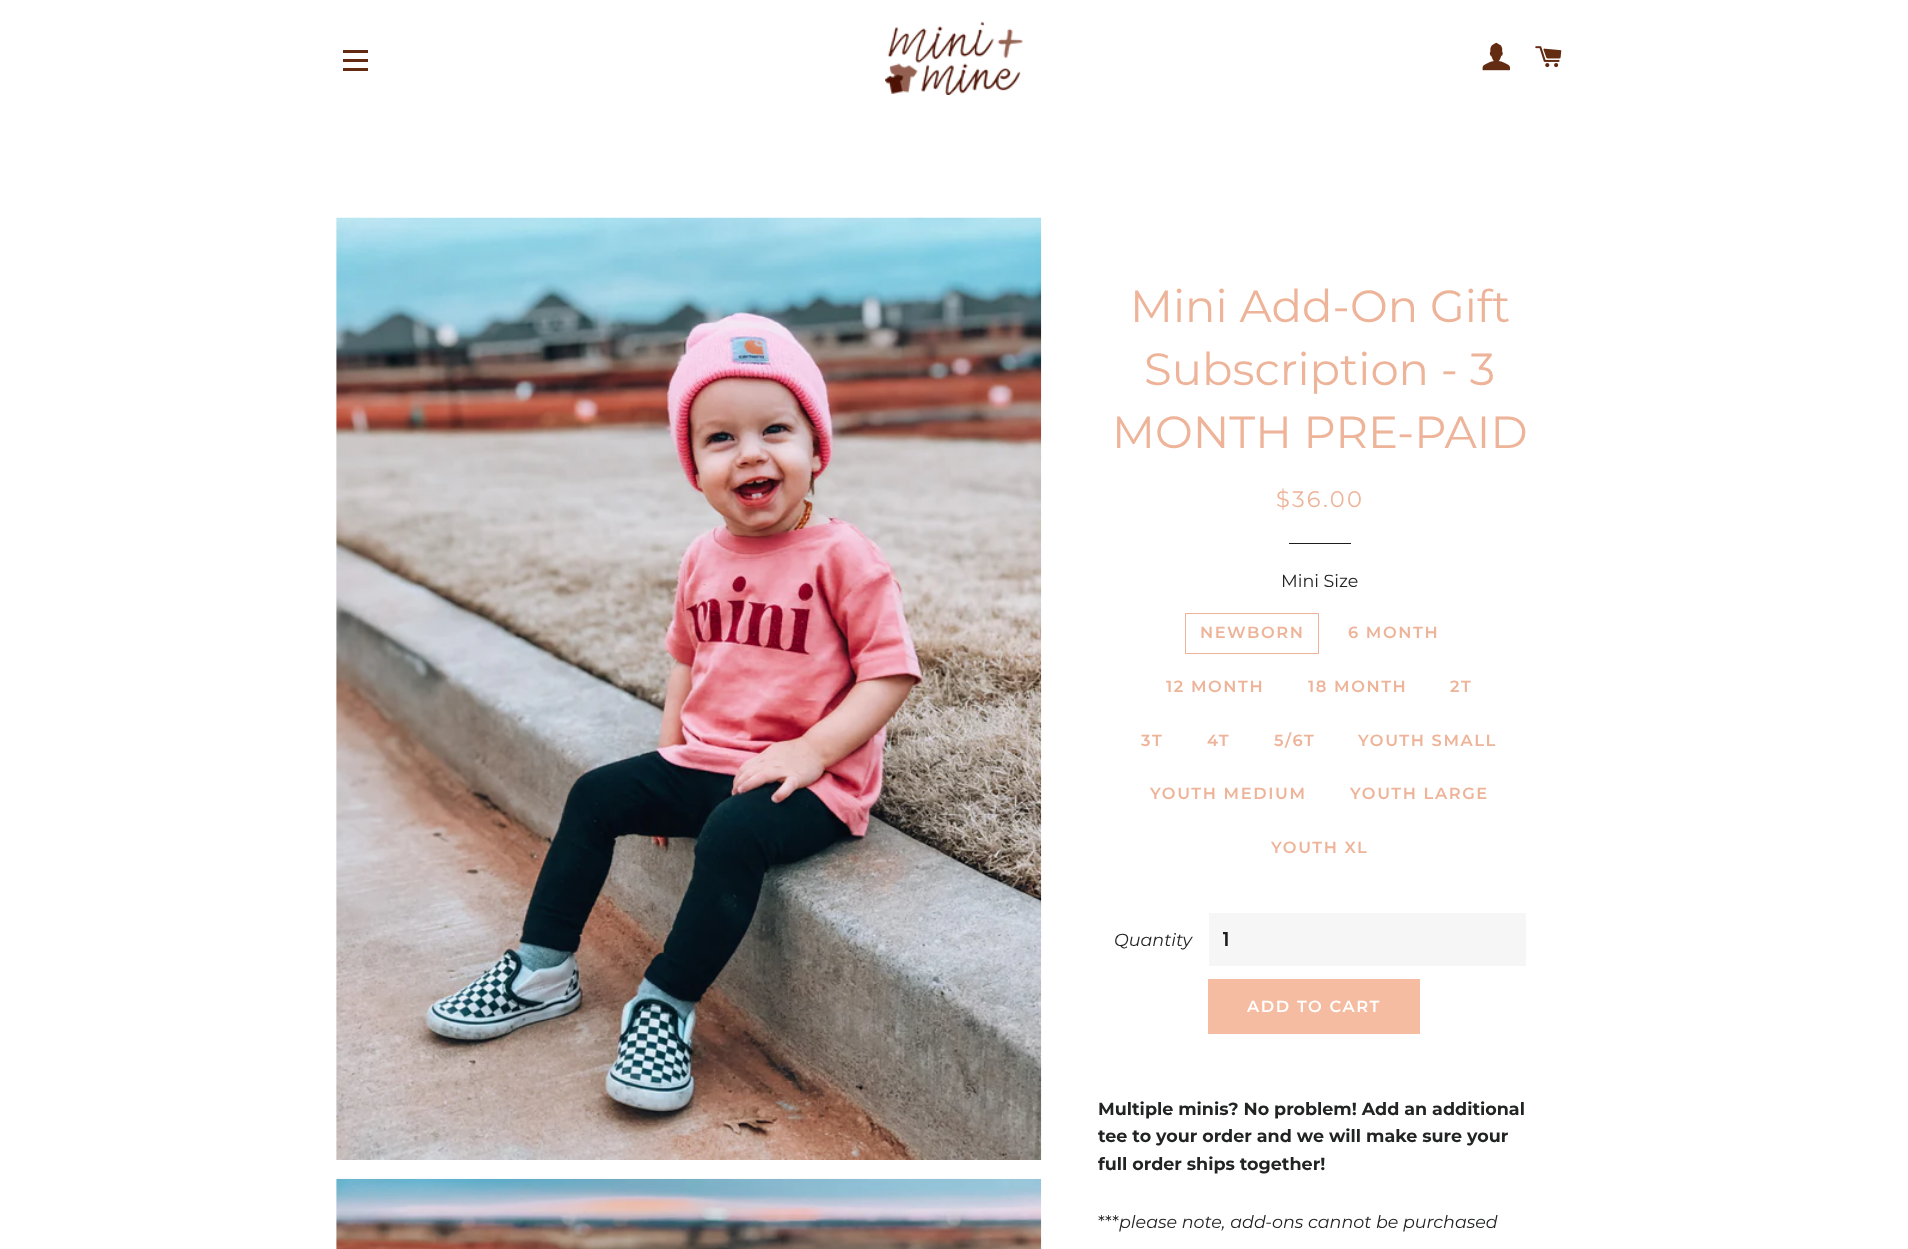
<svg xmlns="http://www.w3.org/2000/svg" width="1908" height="1249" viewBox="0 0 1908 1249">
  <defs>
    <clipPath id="clip1"><rect x="1223" y="924" width="271" height="31"/></clipPath>
  </defs>
  <rect width="100%" height="100%" fill="rgb(255,255,255)"/>
  <rect x="343" y="50" width="25" height="3" fill="rgb(99,43,18)"/>
  <rect x="343" y="59" width="25" height="3" fill="rgb(99,43,18)"/>
  <rect x="343" y="68" width="25" height="3" fill="rgb(99,43,18)"/>
  <image x="885" y="22" width="138" height="73" href="pic1.png"/>
  <image x="1482" y="42" width="28" height="29" href="pic2.png"/>
  <image x="1535" y="46" width="27" height="22" href="pic3.png"/>
  <rect x="336" y="218" width="1" height="942" fill="rgb(247,247,247)"/>
  <image x="336" y="217" width="706" height="943" href="pic4.png"/>
  <rect x="336" y="1179" width="1" height="70" fill="rgb(247,247,247)"/>
  <image x="336" y="1178" width="706" height="71" href="pic5.png"/>
  <g font-family="Montserrat" font-size="45" fill="rgb(238,180,154)">
    <text x="1130" y="322">Mini Add-On Gift</text>
    <text x="1144" y="385">Subscription - 3</text>
    <text x="1112" y="448">MONTH PRE-PAID</text>
  </g>
  <text x="1276" y="507" font-family="Montserrat" font-size="22.5" letter-spacing="2.25" fill="rgb(238,180,154)">$36.00</text>
  <rect x="1289" y="543" width="62" height="1" fill="rgb(28,29,29)"/>
  <text x="1281" y="587" font-family="Montserrat" font-size="17.5" fill="rgb(34,35,35)">Mini Size</text>
  <rect x="1185.5" y="613.5" width="133" height="40" fill="none" stroke="rgb(238,180,154)"/>
  <g font-family="Montserrat" font-size="16.25" font-weight="600" letter-spacing="1.6" fill="rgb(238,180,154)">
    <text x="1200" y="638">NEWBORN</text>
    <text x="1348" y="638">6 MONTH</text>
    <text x="1166" y="692">12 MONTH</text>
    <text x="1308" y="692">18 MONTH</text>
    <text x="1450" y="692">2T</text>
    <text x="1141" y="746">3T</text>
    <text x="1207" y="746">4T</text>
    <text x="1274" y="746">5/6T</text>
    <text x="1358" y="746">YOUTH SMALL</text>
    <text x="1150" y="799">YOUTH MEDIUM</text>
    <text x="1350" y="799">YOUTH LARGE</text>
    <text x="1271" y="853">YOUTH XL</text>
  </g>
  <text x="1114" y="946" font-family="Montserrat" font-size="17.5" font-style="italic" fill="rgb(34,35,35)">Quantity</text>
  <rect x="1209" y="913" width="317" height="53" fill="rgb(246,246,246)"/>
  <g clip-path="url(#clip1)">
    <text x="1222" y="946" font-family="Montserrat" font-size="20" font-weight="600" letter-spacing="2" fill="rgb(28,29,29)">1</text>
  </g>
  <rect x="1208" y="979" width="212" height="55" fill="rgb(245,188,162)"/>
  <text x="1247" y="1012" font-family="Montserrat" font-size="16.25" font-weight="600" letter-spacing="1.6" fill="rgb(255,255,255)">ADD TO CART</text>
  <g font-family="Montserrat" font-size="17.5" font-weight="bold" fill="rgb(34,35,35)">
    <text>
      <tspan x="1098" y="1115">Multiple minis? No problem! Add an additional</tspan>
      <tspan x="1098" y="1142">tee to your order and we will make sure your</tspan>
      <tspan x="1098" y="1170">full order ships together!</tspan>
    </text>
  </g>
  <text x="1098" y="1228" font-family="Montserrat" font-size="17.5" fill="rgb(34,35,35)">***</text>
  <text x="1119" y="1228" font-family="Montserrat" font-size="17.5" font-style="italic" fill="rgb(34,35,35)">please note, add-ons cannot be purchased</text>
</svg>
